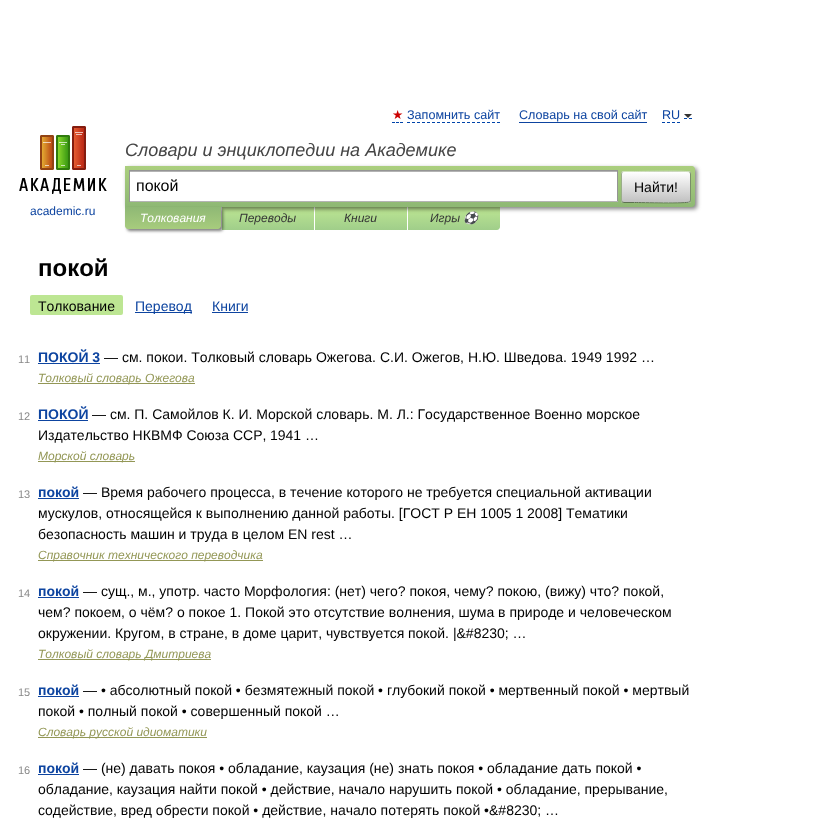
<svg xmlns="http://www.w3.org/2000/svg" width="830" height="822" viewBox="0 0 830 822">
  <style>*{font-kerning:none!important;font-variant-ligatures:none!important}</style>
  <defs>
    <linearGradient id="g1" gradientUnits="userSpaceOnUse" x1="268" y1="207" x2="268" y2="230"><stop offset="0" stop-color="rgb(189,230,147)"/><stop offset="1" stop-color="rgb(160,206,138)"/></linearGradient>
    <linearGradient id="g2" gradientUnits="userSpaceOnUse" x1="361" y1="207" x2="361" y2="230"><stop offset="0" stop-color="rgb(189,230,147)"/><stop offset="1" stop-color="rgb(160,206,138)"/></linearGradient>
    <linearGradient id="g3" gradientUnits="userSpaceOnUse" x1="454" y1="207" x2="454" y2="230"><stop offset="0" stop-color="rgb(189,230,147)"/><stop offset="1" stop-color="rgb(160,206,138)"/></linearGradient>
    <linearGradient id="g4" gradientUnits="userSpaceOnUse" x1="410" y1="166" x2="410" y2="207"><stop offset="0" stop-color="rgb(171,207,126)"/><stop offset="1" stop-color="rgb(142,184,116)"/></linearGradient>
    <clipPath id="clip1"><rect x="621" y="171" width="70" height="32" rx="3"/></clipPath>
    <linearGradient id="g5" gradientUnits="userSpaceOnUse" x1="656" y1="142" x2="656" y2="172"><stop offset="0" stop-color="rgb(255,255,255)"/><stop offset="1" stop-color="rgb(193,193,193)"/></linearGradient>
    <linearGradient id="g6" gradientUnits="userSpaceOnUse" x1="656" y1="172" x2="656" y2="202"><stop offset="0" stop-color="rgb(255,255,255)"/><stop offset="1" stop-color="rgb(193,193,193)"/></linearGradient>
    <linearGradient id="g7" gradientUnits="userSpaceOnUse" x1="656" y1="202" x2="656" y2="232"><stop offset="0" stop-color="rgb(255,255,255)"/><stop offset="1" stop-color="rgb(193,193,193)"/></linearGradient>
    <linearGradient id="g8" gradientUnits="userSpaceOnUse" x1="173" y1="207" x2="173" y2="229"><stop offset="0" stop-color="rgb(143,184,117)"/><stop offset="1" stop-color="rgb(167,204,125)"/></linearGradient>
  </defs>
  <rect width="100%" height="100%" fill="rgb(255,255,255)"/>
  <text x="392" y="119" font-family="DejaVu Sans" font-size="12.6" fill="rgb(204,0,0)">★</text>
  <path d="M392 122.5H395M396 122.5H399M400 122.5H403" fill="none" stroke="rgb(0,68,170)"/>
  <text x="407" y="119" font-family="Liberation Sans" font-size="12.6" fill="rgb(13,68,160)">Запомнить сайт</text>
  <path d="M407 122.5H500" fill="none" stroke="rgb(0,68,170)" stroke-dasharray="3 2"/>
  <text x="519" y="119" font-family="Liberation Sans" font-size="12.6" fill="rgb(13,68,160)">Словарь на свой сайт</text>
  <rect x="519" y="122" width="128" height="1" fill="rgb(13,68,160)"/>
  <path d="M662 122.5H680" fill="none" stroke="rgb(0,68,170)" stroke-dasharray="3 2"/>
  <path d="M684 118.5H687M689 118.5H692" fill="none" stroke="rgb(0,68,170)"/>
  <text x="662" y="119" font-family="Liberation Sans" font-size="12.6" fill="rgb(13,68,160)">RU</text>
  <path d="M684 114H692L688 118Z" fill="rgb(51,51,51)"/>
  <text x="125" y="156" font-family="Liberation Sans" font-size="18" font-style="italic" fill="rgb(69,69,69)">Словари и энциклопедии на Академике</text>
  <rect x="222" y="207" width="92" height="23" fill="url(#g1)"/>
  <rect x="315" y="207" width="92" height="23" fill="url(#g2)"/>
  <path d="M408 207H500V227C500 228.5 498.5 230 497 230H408Z" fill="url(#g3)"/>
  <rect x="127" y="168" width="570" height="41" rx="3" fill="rgba(0,0,0,0.5)" filter="blur(2px)"/>
  <path d="M125 166H692C693.5 166 695 167.5 695 169V204C695 205.5 693.5 207 692 207H125Z" fill="url(#g4)"/>
  <rect x="130" y="172" width="487" height="29" fill="rgb(255,255,255)"/>
  <rect x="130" y="171" width="487" height="1" fill="rgb(179,179,179)"/>
  <rect x="129" y="170" width="489" height="1" fill="rgb(148,148,148)"/>
  <rect x="617" y="170" width="1" height="32" fill="rgb(148,148,148)"/>
  <rect x="129" y="201" width="489" height="1" fill="rgb(180,180,180)"/>
  <rect x="129" y="170" width="1" height="32" fill="rgb(148,148,148)"/>
  <text x="136" y="191" font-family="Liberation Sans" font-size="16" fill="rgb(0,0,0)">покой</text>
  <g clip-path="url(#clip1)">
    <rect x="621" y="171" width="70" height="1" fill="url(#g5)"/>
    <rect x="621" y="172" width="70" height="30" fill="url(#g6)"/>
    <rect x="621" y="202" width="70" height="1" fill="url(#g7)"/>
  </g>
  <path d="M622 172L624 171.5H634.5C641 171.5 687.5 170.5 689.5 172H690" fill="none" stroke="rgb(209,228,188)"/>
  <path d="M690 172C690 172.5 690.5 173.5 690.5 174V200C690.5 200.5 690 201.5 690 202" fill="none" stroke="rgb(122,142,105)"/>
  <path d="M690 202H689.5C687.5 203.5 641 202.5 634.5 202.5H624L622 202" fill="none" stroke="rgb(93,114,80)"/>
  <path d="M622 202C622 201.5 621.5 200.5 621.5 200V174C621.5 173.5 622 172.5 622 172" fill="none" stroke="rgb(154,174,137)"/>
  <text x="634" y="192" font-family="Liberation Sans" font-size="14" fill="rgb(0,0,0)">Найти!</text>
  <image x="19" y="126" width="88" height="68" href="pic1.png"/>
  <text x="30" y="215" font-family="Liberation Sans" font-size="12" fill="rgb(13,68,160)">academic.ru</text>
  <rect x="127" y="209" width="96" height="22" rx="3" fill="rgba(0,0,0,0.5)" filter="blur(1.5px)"/>
  <path d="M125 207H221V226C221 227.5 219.5 229 218 229H128C126.5 229 125 227.5 125 226Z" fill="url(#g8)"/>
  <text x="140" y="222" font-family="Liberation Sans" font-size="12" font-style="italic" fill="rgb(255,255,255)">Толкования</text>
  <g font-family="Liberation Sans" font-size="12" font-style="italic" fill="rgb(53,53,53)">
    <text x="239" y="222">Переводы</text>
    <text x="344" y="222">Книги</text>
    <text x="430" y="222">Игры</text>
  </g>
  <text x="463" y="222" font-family="Noto Color Emoji" font-size="12" font-style="italic" fill="rgb(53,53,53)">⚽</text>
  <text x="38" y="276" font-family="Liberation Sans" font-size="24" font-weight="bold" fill="rgb(0,0,0)">покой</text>
  <rect x="30" y="295" width="93" height="20" rx="2" fill="rgb(189,230,147)"/>
  <text x="38" y="311" font-family="Liberation Sans" font-size="14" fill="rgb(0,0,0)">Толкование</text>
  <rect x="135" y="312" width="57" height="1" fill="rgb(13,68,160)"/>
  <g font-family="Liberation Sans" font-size="14" fill="rgb(13,68,160)">
    <text x="135" y="311">Перевод</text>
    <text x="212" y="311">Книги</text>
  </g>
  <rect x="212" y="312" width="36" height="1" fill="rgb(13,68,160)"/>
  <text x="18" y="363" font-family="Liberation Sans" font-size="11" fill="rgb(137,137,137)">11</text>
  <text x="38" y="362" font-family="Liberation Sans" font-size="14" font-weight="bold" fill="rgb(13,68,160)">ПОКОЙ 3</text>
  <rect x="38" y="363" width="62" height="1" fill="rgb(13,68,160)"/>
  <text x="104" y="362" font-family="Liberation Sans" font-size="14" fill="rgb(0,0,0)">— см. покои. Толковый словарь Ожегова. С.И. Ожегов, Н.Ю. Шведова. 1949 1992 …</text>
  <rect x="38" y="383" width="157" height="1" fill="rgb(147,151,86)"/>
  <text x="38" y="382" font-family="Liberation Sans" font-size="12" font-style="italic" fill="rgb(147,151,86)">Толковый словарь Ожегова</text>
  <text x="18" y="420" font-family="Liberation Sans" font-size="11" fill="rgb(137,137,137)">12</text>
  <text x="38" y="419" font-family="Liberation Sans" font-size="14" font-weight="bold" fill="rgb(13,68,160)">ПОКОЙ</text>
  <rect x="38" y="420" width="50" height="1" fill="rgb(13,68,160)"/>
  <g font-family="Liberation Sans" font-size="14" fill="rgb(0,0,0)">
    <text x="92" y="419">— см. П. Самойлов К. И. Морской словарь. М. Л.: Государственное Военно морское</text>
    <text x="38" y="440">Издательство НКВМФ Союза ССР,</text>
    <text x="270" y="440">1941 …</text>
  </g>
  <rect x="38" y="461" width="97" height="1" fill="rgb(147,151,86)"/>
  <text x="38" y="460" font-family="Liberation Sans" font-size="12" font-style="italic" fill="rgb(147,151,86)">Морской словарь</text>
  <text x="18" y="498" font-family="Liberation Sans" font-size="11" fill="rgb(137,137,137)">13</text>
  <text x="38" y="497" font-family="Liberation Sans" font-size="14" font-weight="bold" fill="rgb(13,68,160)">покой</text>
  <rect x="38" y="498" width="41" height="1" fill="rgb(13,68,160)"/>
  <g font-family="Liberation Sans" font-size="14" fill="rgb(0,0,0)">
    <text x="83" y="497">— Время рабочего процесса, в течение которого не требуется</text>
    <text x="496" y="497">специальной активации</text>
    <text>
      <tspan x="38" y="518">мускулов, относящейся к выполнению данной работы. [ГОСТ Р ЕН 1005 1 2008] Тематики</tspan>
      <tspan x="38" y="539">безопасность машин и труда в целом EN rest …</tspan>
    </text>
  </g>
  <rect x="38" y="560" width="225" height="1" fill="rgb(147,151,86)"/>
  <text x="38" y="559" font-family="Liberation Sans" font-size="12" font-style="italic" fill="rgb(147,151,86)">Справочник технического переводчика</text>
  <text x="18" y="597" font-family="Liberation Sans" font-size="11" fill="rgb(137,137,137)">14</text>
  <text x="38" y="596" font-family="Liberation Sans" font-size="14" font-weight="bold" fill="rgb(13,68,160)">покой</text>
  <rect x="38" y="597" width="41" height="1" fill="rgb(13,68,160)"/>
  <g font-family="Liberation Sans" font-size="14" fill="rgb(0,0,0)">
    <text x="83" y="596">— сущ., м., употр. часто Морфология: (нет) чего? покоя, чему? покою, (вижу) что? покой,</text>
    <text>
      <tspan x="38" y="617">чем? покоем, о чём? о покое 1. Покой это отсутствие волнения, шума в природе и человеческом</tspan>
      <tspan x="38" y="638">окружении. Кругом, в стране, в доме царит, чувствуется</tspan>
    </text>
    <text x="408" y="638">покой. |&amp;#8230; …</text>
  </g>
  <rect x="38" y="659" width="173" height="1" fill="rgb(147,151,86)"/>
  <text x="38" y="658" font-family="Liberation Sans" font-size="12" font-style="italic" fill="rgb(147,151,86)">Толковый словарь Дмитриева</text>
  <text x="18" y="696" font-family="Liberation Sans" font-size="11" fill="rgb(137,137,137)">15</text>
  <text x="38" y="695" font-family="Liberation Sans" font-size="14" font-weight="bold" fill="rgb(13,68,160)">покой</text>
  <rect x="38" y="696" width="41" height="1" fill="rgb(13,68,160)"/>
  <g font-family="Liberation Sans" font-size="14" fill="rgb(0,0,0)">
    <text x="83" y="695">— • абсолютный покой • безмятежный покой • глубокий покой • мертвенный покой • мертвый</text>
    <text x="38" y="716">покой • полный покой • совершенный покой …</text>
  </g>
  <rect x="38" y="737" width="169" height="1" fill="rgb(147,151,86)"/>
  <text x="38" y="736" font-family="Liberation Sans" font-size="12" font-style="italic" fill="rgb(147,151,86)">Словарь русской идиоматики</text>
  <text x="18" y="774" font-family="Liberation Sans" font-size="11" fill="rgb(137,137,137)">16</text>
  <text x="38" y="773" font-family="Liberation Sans" font-size="14" font-weight="bold" fill="rgb(13,68,160)">покой</text>
  <rect x="38" y="774" width="41" height="1" fill="rgb(13,68,160)"/>
  <g font-family="Liberation Sans" font-size="14" fill="rgb(0,0,0)">
    <text x="83" y="773">— (не) давать покоя • обладание, каузация (не) знать покоя • обладание дать покой •</text>
    <text>
      <tspan x="38" y="794">обладание, каузация найти покой • действие, начало нарушить покой • обладание, прерывание,</tspan>
      <tspan x="38" y="815">содействие, вред обрести покой • действие, начало потерять покой •&amp;#8230; …</tspan>
    </text>
  </g>
</svg>
